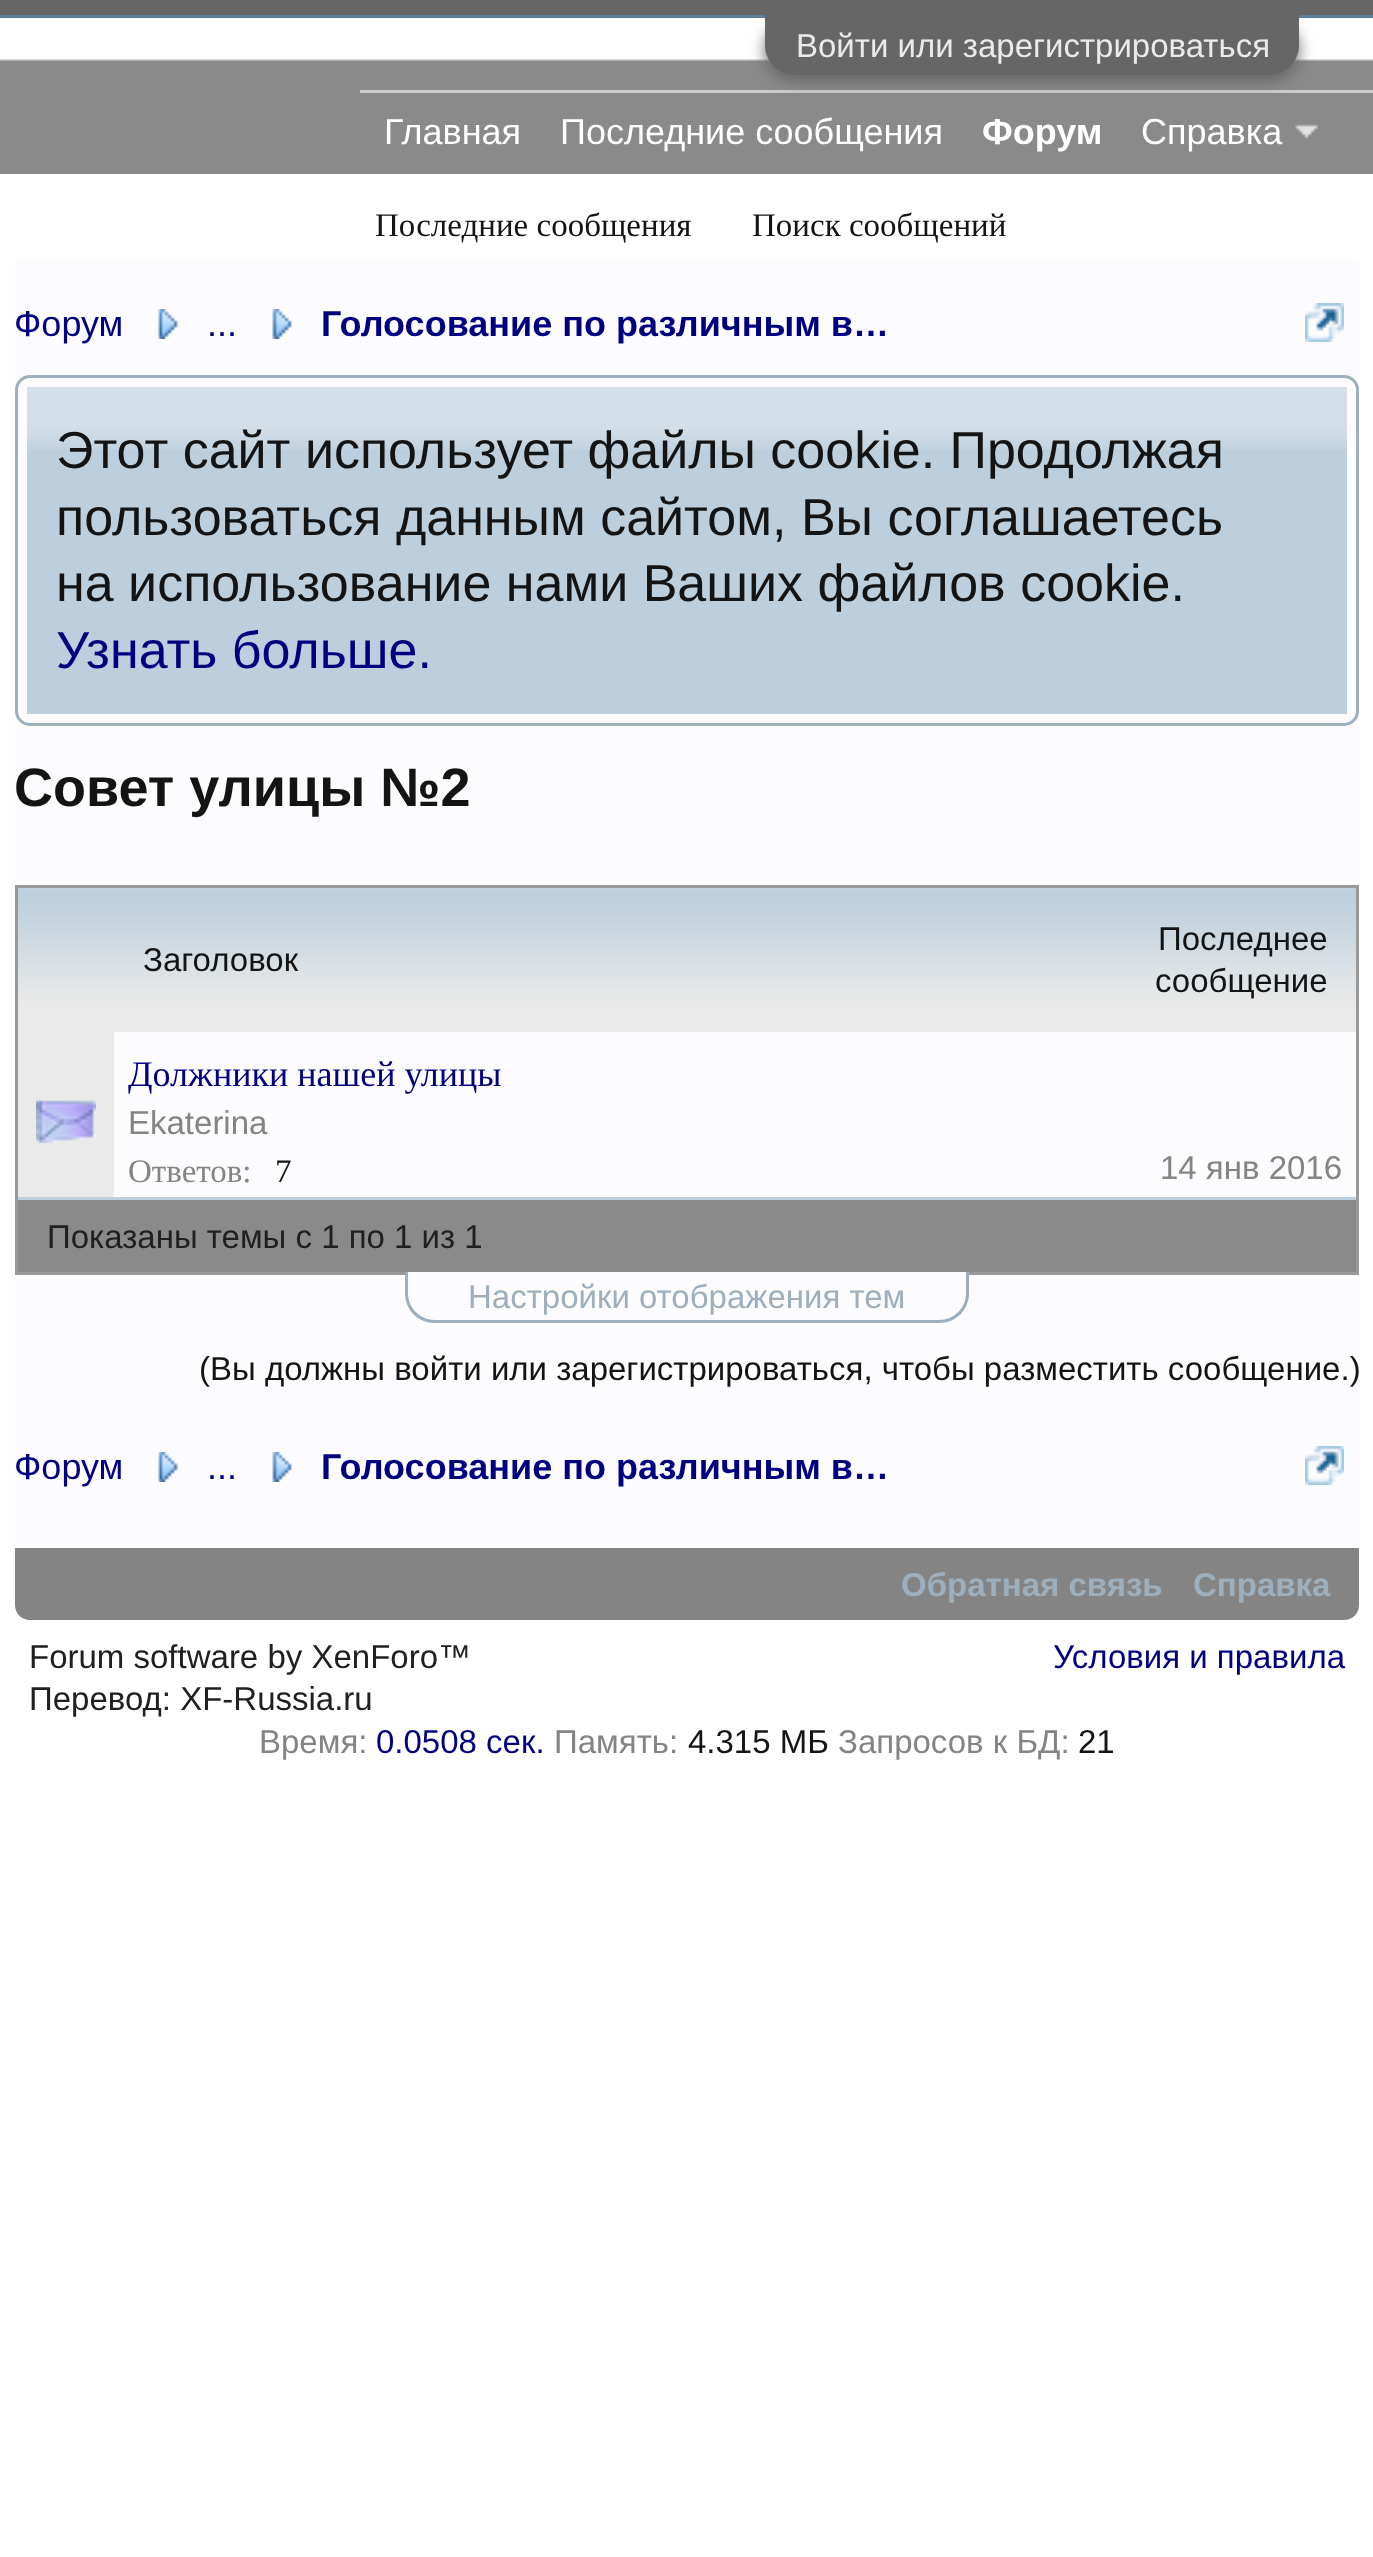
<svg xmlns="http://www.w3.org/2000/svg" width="1373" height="2557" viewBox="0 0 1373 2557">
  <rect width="100%" height="100%" fill="rgb(255,255,255)"/>
  <rect x="0" y="0" width="1373" height="15" fill="rgb(102,102,102)"/>
  <rect x="0" y="15" width="1373" height="3" fill="rgb(88,126,154)"/>
  <image x="0" y="59" width="1373" height="115" href="pic1.png"/>
  <rect x="360" y="90" width="1013" height="3" fill="rgb(204,204,204)"/>
  <rect x="765" y="21" width="534" height="60" rx="30" fill="rgb(102,102,102)" filter="blur(7.5px)"/>
  <path d="M765 15H1299V45C1299 61.5 1285.5 75 1269 75H795C778.5 75 765 61.5 765 45Z" fill="rgb(102,102,102)"/>
  <text x="796" y="57" font-family="Liberation Sans" font-size="33" fill="rgb(234,234,234)">Войти или зарегистрироваться</text>
  <g font-family="Liberation Sans" font-size="36" fill="rgb(255,255,255)">
    <text x="560" y="144">Последние сообщения</text>
    <text x="1141" y="144">Справка</text>
  </g>
  <image x="1295" y="124" width="23" height="15" href="pic2.png"/>
  <text x="982" y="144" font-family="Liberation Sans" font-size="36" font-weight="bold" fill="rgb(255,255,255)">Форум</text>
  <g font-family="Liberation Serif" font-size="33" fill="rgb(20,20,20)">
    <text x="375" y="236">Последние сообщения</text>
    <text x="752" y="236">Поиск сообщений</text>
  </g>
  <text x="384" y="144" font-family="Liberation Sans" font-size="36" fill="rgb(255,255,255)">Главная</text>
  <rect x="15" y="258" width="1344" height="1290" fill="rgb(252,252,255)"/>
  <text x="14" y="336" font-family="Liberation Sans" font-size="36" fill="rgb(0,0,128)">Форум</text>
  <image x="158" y="309" width="20" height="30" href="pic3.png"/>
  <text x="207" y="336" font-family="Liberation Sans" font-size="36" fill="rgb(0,0,128)">...</text>
  <image x="272" y="309" width="20" height="30" href="pic4.png"/>
  <text x="321" y="336" font-family="Liberation Sans" font-size="36" font-weight="bold" fill="rgb(0,0,128)">Голосование по различным в…</text>
  <image x="1305" y="303" width="39" height="39" href="pic5.png"/>
  <rect x="16.5" y="376.5" width="1341" height="348" rx="13.5" fill="none" stroke="rgb(157,175,189)" stroke-width="3"/>
  <rect x="27" y="387" width="1320" height="327" fill="rgb(189,207,221)"/>
  <image x="27" y="387" width="1320" height="63" href="pic6.png"/>
  <g font-family="Liberation Sans" font-size="52" fill="rgb(20,20,20)">
    <text>
      <tspan x="56" y="468">Этот сайт использует файлы cookie. Продолжая</tspan>
      <tspan x="56" y="535">пользоваться данным сайтом, Вы соглашаетесь</tspan>
      <tspan x="56" y="601">на использование нами Ваших файлов cookie.</tspan>
    </text>
  </g>
  <text x="56" y="668" font-family="Liberation Sans" font-size="52" fill="rgb(0,0,128)">Узнать больше.</text>
  <text x="14" y="806" font-family="Liberation Sans" font-size="54" font-weight="bold" fill="rgb(20,20,20)">Совет улицы №2</text>
  <rect x="16.5" y="886.5" width="1341" height="387" fill="none" stroke="rgb(153,153,153)" stroke-width="3"/>
  <image x="18" y="888" width="1338" height="144" href="pic7.png"/>
  <g font-family="Liberation Sans" font-size="33" fill="rgb(20,20,20)">
    <text x="143" y="971">Заголовок</text>
    <text x="1158" y="950">Последнее</text>
    <text x="1155" y="992">сообщение</text>
  </g>
  <rect x="18" y="1197" width="1338" height="3" fill="rgb(189,207,221)"/>
  <rect x="18" y="1032" width="96" height="165" fill="rgb(234,234,234)"/>
  <image x="36" y="1100" width="60" height="43" href="pic8.png"/>
  <text x="128" y="1086" font-family="Liberation Serif" font-size="36" fill="rgb(0,0,128)">Должники нашей улицы</text>
  <text x="128" y="1134" font-family="Liberation Sans" font-size="33" fill="rgb(132,132,132)">Ekaterina</text>
  <text x="128" y="1182" font-family="Liberation Serif" font-size="33" fill="rgb(132,132,132)">Ответов:</text>
  <text x="275" y="1182" font-family="Liberation Serif" font-size="33" fill="rgb(20,20,20)">7</text>
  <text x="1160" y="1179" font-family="Liberation Sans" font-size="33" fill="rgb(132,132,132)">14 янв 2016</text>
  <rect x="18" y="1200" width="1338" height="72" fill="rgb(138,138,138)"/>
  <text x="47" y="1248" font-family="Liberation Sans" font-size="33" fill="rgb(32,32,32)">Показаны темы с 1 по 1 из 1</text>
  <path d="M405 1272H969V1293C969 1309.5 955.5 1323 939 1323H435C418.5 1323 405 1309.5 405 1293Z" fill="rgb(252,252,255)"/>
  <path d="M405 1272H969V1293C969 1310 956 1323 939 1323H435C418 1323 405 1310 405 1293ZM408 1272H966V1293C966 1308 954 1320 939 1320H435C420 1320 408 1308 408 1293Z" fill="rgb(157,175,189)" fill-rule="evenodd"/>
  <text x="468" y="1308" font-family="Liberation Sans" font-size="33" fill="rgb(157,175,189)">Настройки отображения тем</text>
  <text x="199" y="1380" font-family="Liberation Sans" font-size="33" fill="rgb(20,20,20)">(Вы должны войти или зарегистрироваться, чтобы разместить сообщение.)</text>
  <text x="14" y="1479" font-family="Liberation Sans" font-size="36" fill="rgb(0,0,128)">Форум</text>
  <image x="158" y="1452" width="20" height="30" href="pic3.png"/>
  <text x="207" y="1479" font-family="Liberation Sans" font-size="36" fill="rgb(0,0,128)">...</text>
  <image x="272" y="1452" width="20" height="30" href="pic4.png"/>
  <text x="321" y="1479" font-family="Liberation Sans" font-size="36" font-weight="bold" fill="rgb(0,0,128)">Голосование по различным в…</text>
  <image x="1305" y="1446" width="39" height="39" href="pic5.png"/>
  <path d="M15 1548H1359V1605C1359 1613.5 1352.5 1620 1344 1620H30C21.5 1620 15 1613.5 15 1605Z" fill="rgb(132,132,132)"/>
  <g font-family="Liberation Sans" font-size="33" font-weight="bold" fill="rgb(157,175,189)">
    <text x="901" y="1596">Обратная связь</text>
    <text x="1193" y="1596">Справка</text>
  </g>
  <g font-family="Liberation Sans" font-size="33" fill="rgb(32,32,32)">
    <text>
      <tspan x="29" y="1668">Forum software by XenForo™</tspan>
      <tspan x="29" y="1710">Перевод: XF-Russia.ru</tspan>
    </text>
  </g>
  <text x="1053" y="1668" font-family="Liberation Sans" font-size="33" fill="rgb(0,0,128)">Условия и правила</text>
  <text x="259" y="1753" font-family="Liberation Sans" font-size="33" fill="rgb(132,132,132)">Время:</text>
  <text x="376" y="1753" font-family="Liberation Sans" font-size="33" fill="rgb(0,0,128)">0.0508 сек.</text>
  <text x="554" y="1753" font-family="Liberation Sans" font-size="33" fill="rgb(132,132,132)">Память:</text>
  <text x="688" y="1753" font-family="Liberation Sans" font-size="33" fill="rgb(20,20,20)">4.315 МБ</text>
  <text x="838" y="1753" font-family="Liberation Sans" font-size="33" fill="rgb(132,132,132)">Запросов к БД:</text>
  <text x="1078" y="1753" font-family="Liberation Sans" font-size="33" fill="rgb(20,20,20)">21</text>
</svg>
